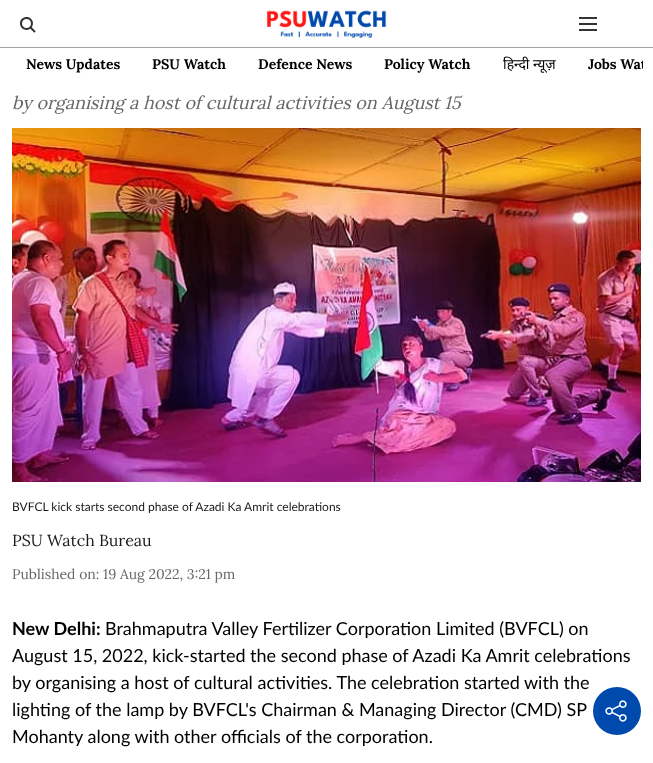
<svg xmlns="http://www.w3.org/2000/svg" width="653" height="763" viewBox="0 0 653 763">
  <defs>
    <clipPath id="clip1"><rect x="10" y="48" width="633" height="33"/></clipPath>
  </defs>
  <rect width="100%" height="100%" fill="rgb(255,255,255)"/>
  <rect x="0" y="47" width="653" height="1" fill="rgb(164,164,164)"/>
  <image x="266" y="10" width="121" height="28" href="pic1.png"/>
  <image x="19" y="17" width="17" height="16" href="pic2.png"/>
  <image x="579" y="17" width="18" height="14" href="pic3.png"/>
  <g font-family="Lora" font-size="14" font-weight="bold" fill="rgb(0,0,0)">
    <text x="26" y="69">News Updates</text>
    <text x="152" y="69">PSU Watch</text>
    <text x="258" y="69">Defence News</text>
    <text x="384" y="69">Policy Watch</text>
  </g>
  <text x="503" y="69" font-family="Noto Sans" font-size="14" fill="rgb(0,0,0)">हिन्दी न्यूज़</text>
  <g clip-path="url(#clip1)">
    <text x="588" y="69" font-family="Lora" font-size="14" font-weight="bold" fill="rgb(0,0,0)">Jobs Wat</text>
  </g>
  <text x="12" y="109" font-family="Lora" font-size="18" font-style="italic" fill="rgb(102,102,102)">by organising a host of cultural activities on August 15</text>
  <image x="12" y="128" width="629" height="354" href="pic4.png"/>
  <text x="12" y="511" font-family="Lato" font-size="12" fill="rgb(26,26,26)">BVFCL kick starts second phase of Azadi Ka Amrit celebrations</text>
  <text x="12" y="546" font-family="Lora" font-size="16" fill="rgb(26,26,26)">PSU Watch Bureau</text>
  <text x="12" y="579" font-family="Lora" font-size="14" fill="rgb(102,102,102)">Published on: 19 Aug 2022, 3:21 pm</text>
  <text x="12" y="635" font-family="Lato" font-size="18" font-weight="bold" fill="rgb(0,0,0)">New Delhi:</text>
  <g font-family="Lato" font-size="18" fill="rgb(0,0,0)">
    <text x="105" y="635">Brahmaputra Valley Fertilizer Corporation Limited (BVFCL) on</text>
    <text>
      <tspan x="12" y="662">August 15, 2022, kick-started the second phase of Azadi Ka Amrit celebrations</tspan>
      <tspan x="12" y="689">by organising a host of cultural activities. The celebration started with the</tspan>
      <tspan x="12" y="716">lighting of the lamp by BVFCL's Chairman &amp; Managing Director (CMD) SP</tspan>
      <tspan x="12" y="743">Mohanty along with other officials of the corporation.</tspan>
    </text>
  </g>
  <circle cx="617" cy="711" r="24" fill="rgb(0,74,173)"/>
  <image x="605" y="700" width="22" height="22" href="pic5.png"/>
</svg>
